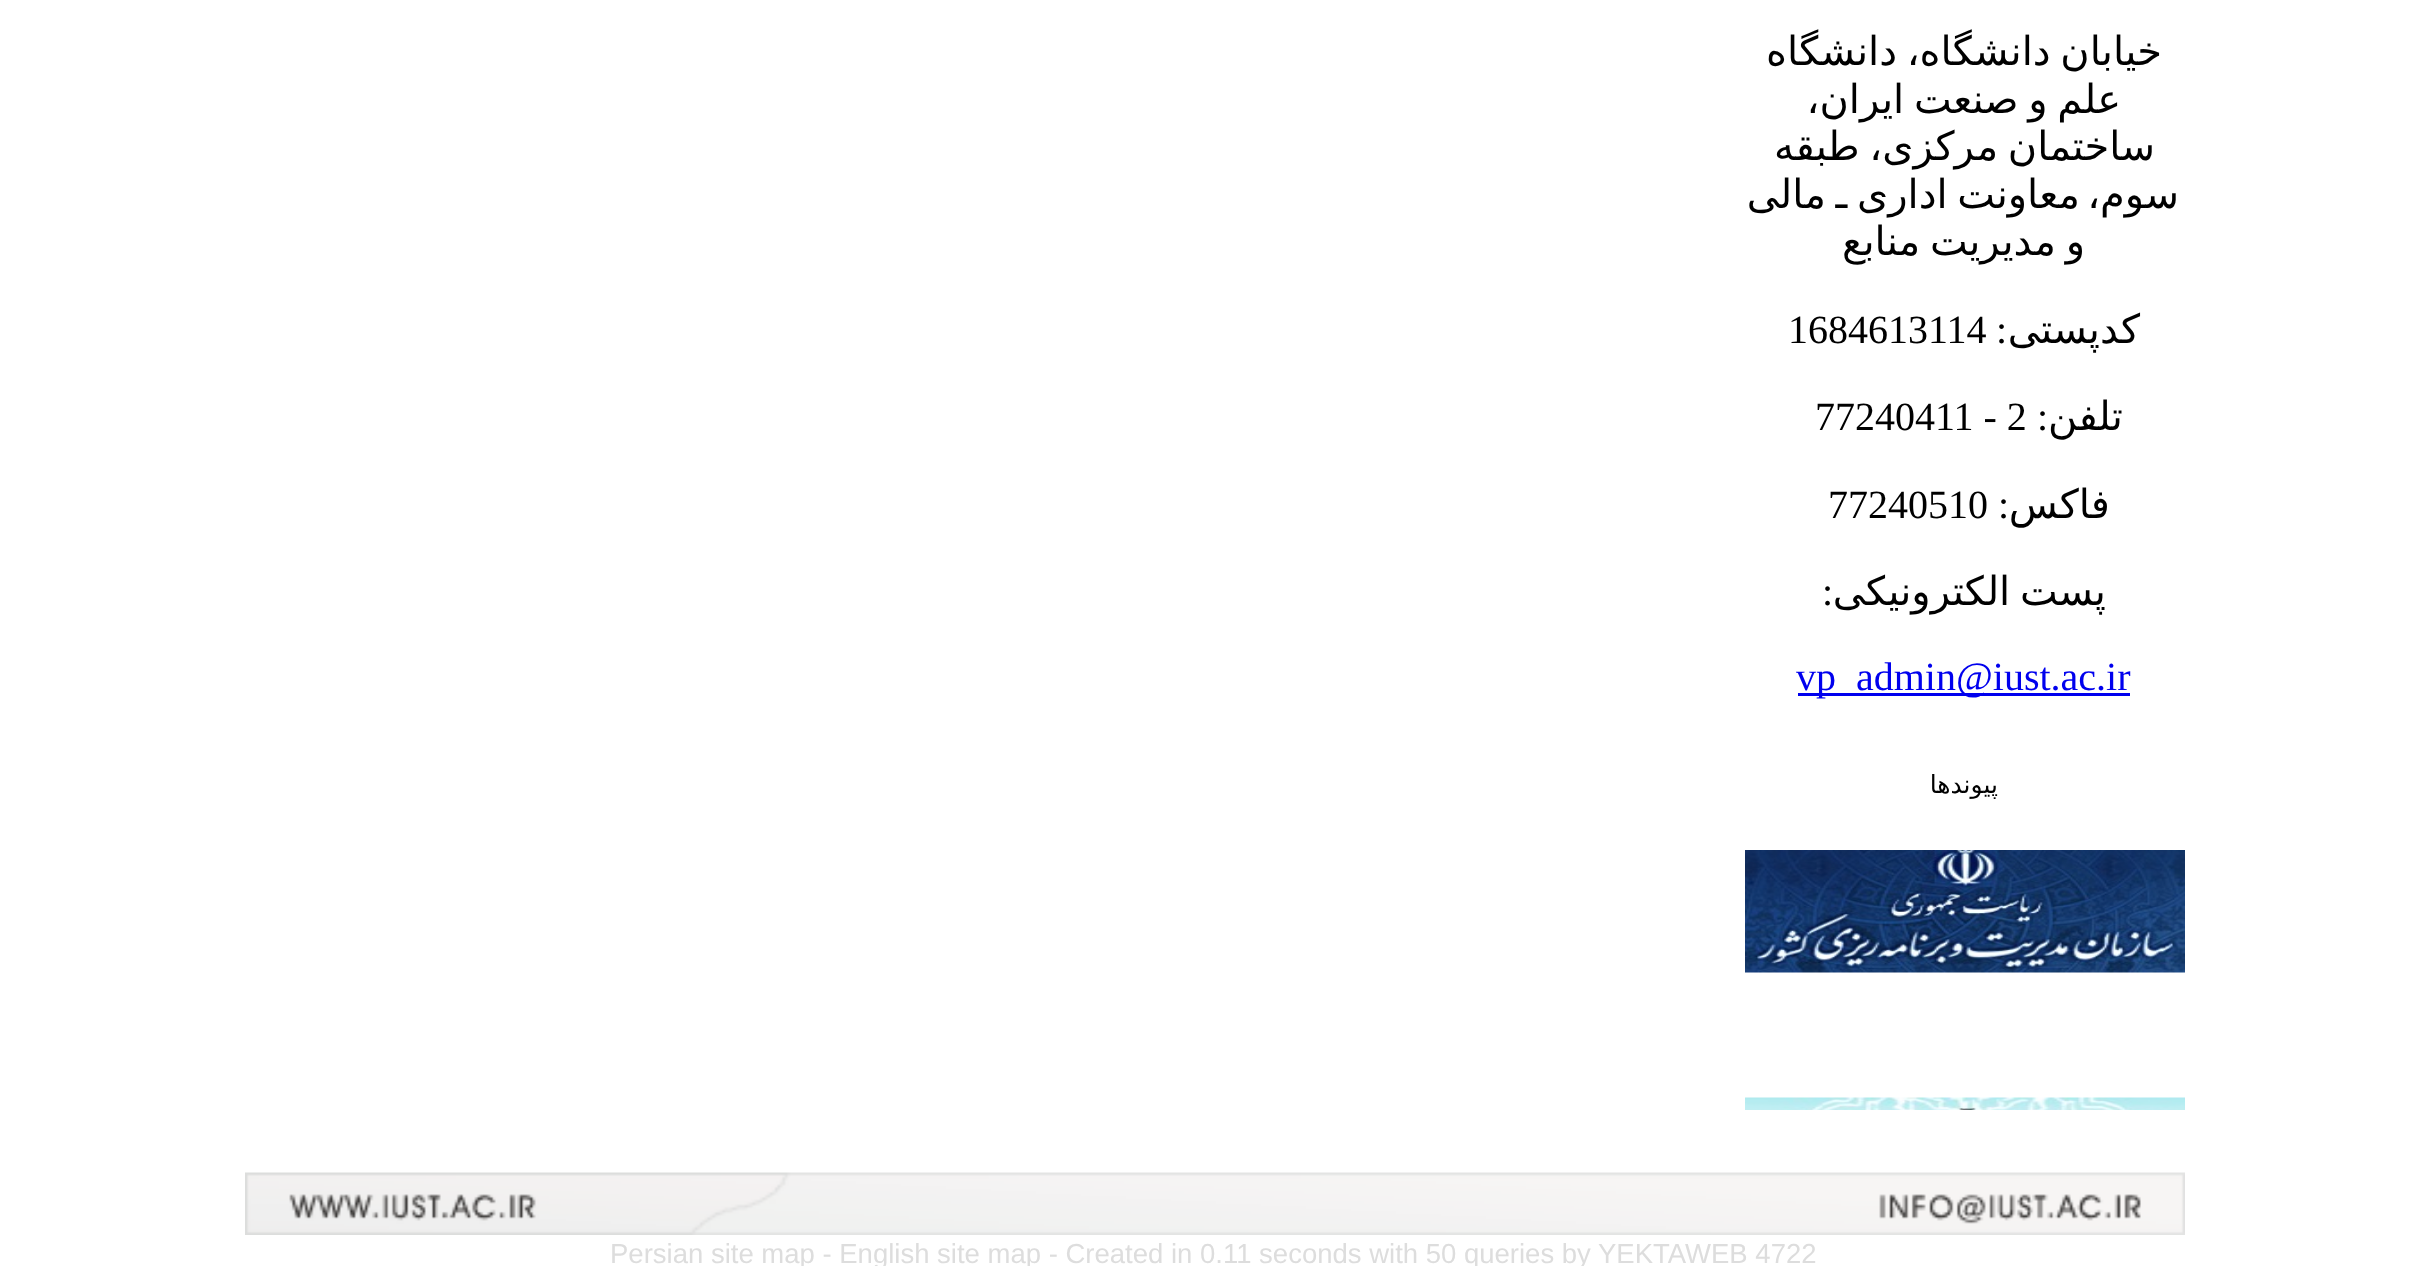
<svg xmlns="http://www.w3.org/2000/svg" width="2426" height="1266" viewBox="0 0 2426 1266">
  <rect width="100%" height="100%" fill="rgb(255,255,255)"/>
  <g font-family="DejaVu Sans" font-size="40" direction="rtl" fill="rgb(0,0,0)">
    <text x="2162" y="65" word-spacing="-3">خیابان دانشگاه، دانشگاه</text>
    <text x="2121" y="113" word-spacing="-3">علم و صنعت ایران،</text>
    <text x="2155" y="160" word-spacing="-3">ساختمان مرکزی، طبقه</text>
    <text x="2080" y="208" word-spacing="-3">معاونت اداری ـ مالی</text>
    <text x="2179" y="208">سوم،</text>
    <text x="2085" y="255" word-spacing="-3">و مدیریت منابع</text>
  </g>
  <text x="1788" y="343" font-family="Liberation Serif" font-size="40" fill="rgb(0,0,0)">1684613114</text>
  <text x="2007" y="343" font-family="Liberation Serif" font-size="40" direction="rtl" fill="rgb(0,0,0)">:</text>
  <text x="2140" y="343" font-family="DejaVu Sans" font-size="40" direction="rtl" fill="rgb(0,0,0)">کدپستی</text>
  <text x="1815" y="430" font-family="Liberation Serif" font-size="40" fill="rgb(0,0,0)">77240411 - 2</text>
  <text x="2048" y="430" font-family="Liberation Serif" font-size="40" direction="rtl" fill="rgb(0,0,0)">:</text>
  <text x="2123" y="430" font-family="DejaVu Sans" font-size="40" direction="rtl" fill="rgb(0,0,0)">تلفن</text>
  <text x="1828" y="518" font-family="Liberation Serif" font-size="40" fill="rgb(0,0,0)">77240510</text>
  <text x="2009" y="518" font-family="Liberation Serif" font-size="40" direction="rtl" fill="rgb(0,0,0)">:</text>
  <text x="2110" y="518" font-family="DejaVu Sans" font-size="40" direction="rtl" fill="rgb(0,0,0)">فاکس</text>
  <text x="1833" y="605" font-family="Liberation Serif" font-size="40" direction="rtl" fill="rgb(0,0,0)">:</text>
  <text x="2106" y="605" word-spacing="-3" font-family="DejaVu Sans" font-size="40" direction="rtl" fill="rgb(0,0,0)">پست الکترونیکی</text>
  <rect x="1798" y="693" width="332" height="3" fill="rgb(0,0,238)"/>
  <text x="1796" y="690" font-family="Liberation Serif" font-size="40" fill="rgb(0,0,238)">vp_admin@iust.ac.ir</text>
  <text x="1998" y="793" font-family="DejaVu Sans" font-size="25" direction="rtl" fill="rgb(0,0,0)">پیوندها</text>
  <image x="1745" y="850" width="440" height="123" href="pic1.png"/>
  <image x="1745" y="1097" width="440" height="13" href="pic2.png"/>
  <image x="245" y="1172" width="1940" height="63" href="pic3.png"/>
  <text x="610" y="1263" font-family="Liberation Sans" font-size="27.5" fill="rgb(221,221,221)">Persian site map - English site map - Created in 0.11 seconds with 50 queries by YEKTAWEB 4722</text>
</svg>
